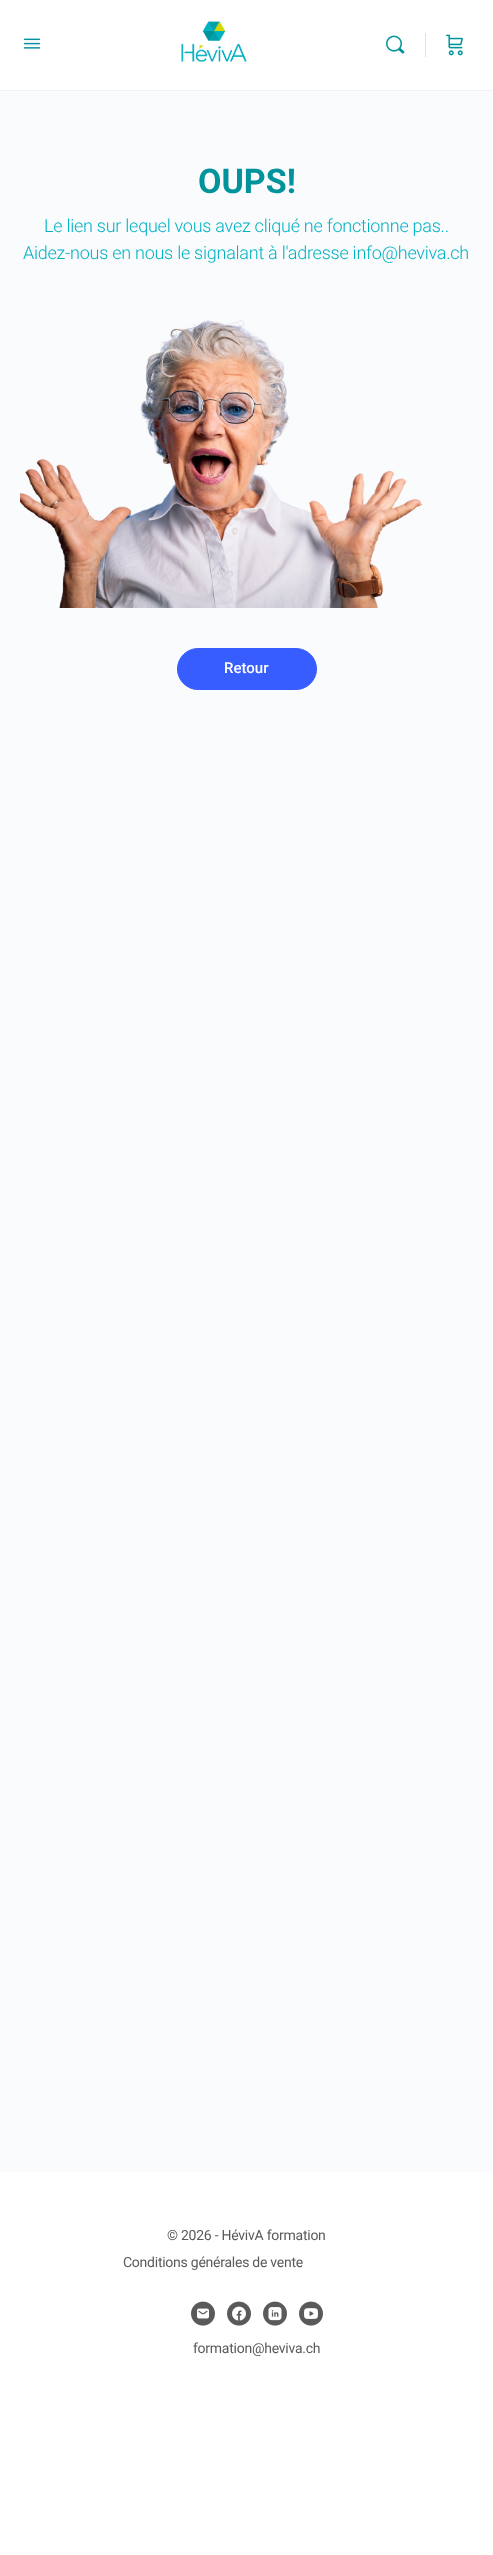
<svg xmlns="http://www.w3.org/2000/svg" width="493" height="2555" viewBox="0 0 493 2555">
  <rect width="100%" height="100%" fill="rgb(250,251,253)"/>
  <rect x="0" y="90" width="493" height="1" fill="rgb(242,243,246)"/>
  <rect x="0" y="0" width="493" height="90" fill="rgb(255,255,255)"/>
  <image x="24" y="38" width="16" height="11" href="pic1.png"/>
  <image x="181" y="21" width="66" height="41" href="pic2.png"/>
  <image x="386" y="35" width="19" height="19" href="pic3.png"/>
  <rect x="425" y="33" width="1" height="24" fill="rgb(204,233,235)"/>
  <image x="446" y="34" width="17" height="22" href="pic4.png"/>
  <text x="198" y="193" font-family="Roboto" font-size="34" font-weight="bold" fill="rgb(0,147,155)">OUPS!</text>
  <g font-family="Roboto" font-size="18" font-weight="300" letter-spacing="-0.25" fill="rgb(0,178,195)">
    <text x="44" y="232">Le lien sur lequel vous avez cliqué ne fonctionne pas..</text>
    <text x="23" y="259">Aidez-nous en nous le signalant à l'adresse info@heviva.ch</text>
  </g>
  <image x="20" y="317" width="403" height="291" href="pic5.png"/>
  <rect x="177.5" y="648.5" width="139" height="41" rx="20.5" fill="rgb(56,93,255)" stroke="rgb(56,93,255)"/>
  <text x="224" y="673" font-family="Roboto" font-size="15" font-weight="500" fill="rgb(255,255,255)">Retour</text>
  <rect x="0" y="2172" width="493" height="383" fill="rgb(255,255,255)"/>
  <g font-family="Roboto" font-size="14" letter-spacing="-0.25" fill="rgb(90,90,90)">
    <text x="167" y="2240">© 2026 - HévivA formation</text>
    <text x="123" y="2267">Conditions générales de vente</text>
  </g>
  <image x="191" y="2301" width="24" height="25" href="pic6.png"/>
  <image x="227" y="2301" width="24" height="25" href="pic7.png"/>
  <image x="263" y="2301" width="24" height="25" href="pic8.png"/>
  <image x="299" y="2301" width="24" height="25" href="pic9.png"/>
  <text x="193" y="2353" font-family="Roboto" font-size="14" letter-spacing="-0.25" fill="rgb(90,90,90)">formation@heviva.ch</text>
</svg>
